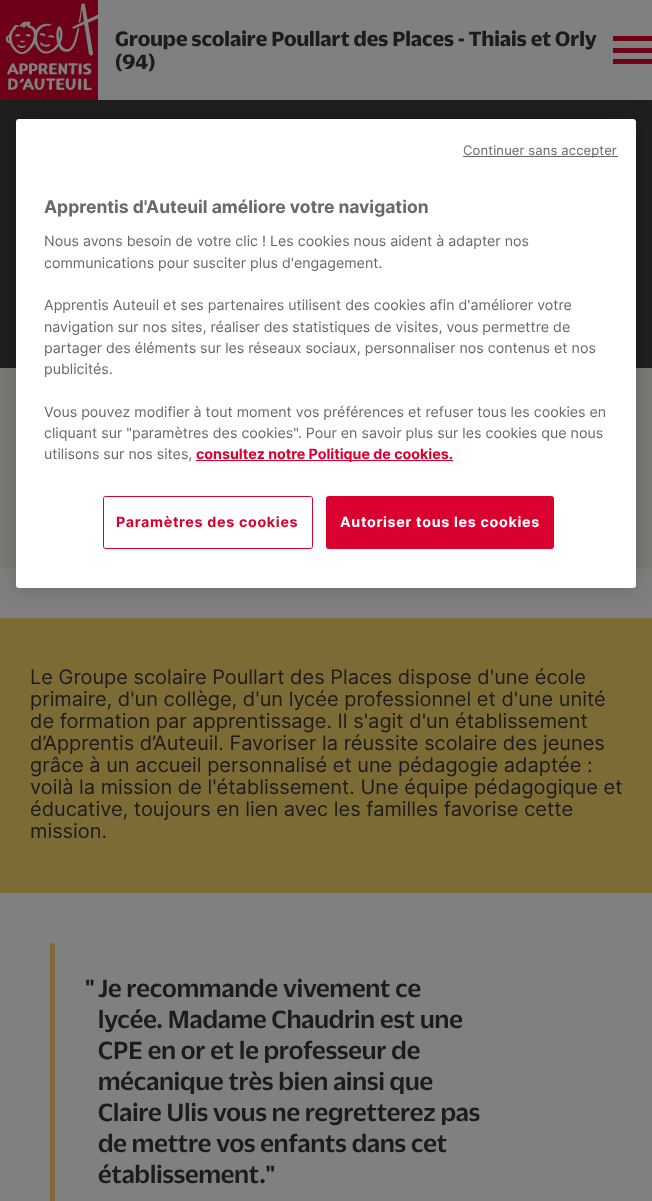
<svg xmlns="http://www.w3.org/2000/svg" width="652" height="1201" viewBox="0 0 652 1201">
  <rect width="100%" height="100%" fill="rgb(128,128,128)"/>
  <image x="0" y="0" width="98" height="100" href="pic1.png"/>
  <g font-family="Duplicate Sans" font-size="22.5" font-weight="bold" fill="rgb(28,28,28)">
    <text>
      <tspan x="115" y="46">Groupe scolaire Poullart des Places - Thiais et Orly</tspan>
      <tspan x="115" y="69">(94)</tspan>
    </text>
  </g>
  <rect x="613" y="36" width="39" height="5" fill="rgb(110,3,22)"/>
  <rect x="613" y="48" width="39" height="5" fill="rgb(110,3,22)"/>
  <rect x="613" y="59" width="39" height="5" fill="rgb(110,3,22)"/>
  <rect x="0" y="368" width="652" height="200" fill="rgb(123,123,118)"/>
  <rect x="0" y="100" width="652" height="268" fill="rgb(31,31,30)"/>
  <rect x="0" y="618" width="652" height="275" fill="rgb(125,107,54)"/>
  <g font-family="Inter" font-size="20" fill="rgb(28,28,28)">
    <text>
      <tspan x="30" y="684">Le Groupe scolaire Poullart des Places dispose d'une école</tspan>
      <tspan x="30" y="706">primaire, d'un collège, d'un lycée professionnel et d'une unité</tspan>
      <tspan x="30" y="728">de formation par apprentissage. Il s'agit d'un établissement</tspan>
      <tspan x="30" y="750">d’Apprentis d’Auteuil. Favoriser la réussite scolaire des jeunes</tspan>
      <tspan x="30" y="772">grâce à un accueil personnalisé et une pédagogie adaptée :</tspan>
      <tspan x="30" y="794">voilà la mission de l'établissement. Une équipe pédagogique et</tspan>
      <tspan x="30" y="816">éducative, toujours en lien avec les familles favorise cette</tspan>
      <tspan x="30" y="838">mission.</tspan>
    </text>
  </g>
  <rect x="50" y="943" width="5" height="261" rx="2.5" fill="rgb(125,107,54)"/>
  <g font-family="Duplicate Sans" font-size="27" font-weight="500" fill="rgb(28,28,28)">
    <text x="85" y="997">"</text>
    <text>
      <tspan x="98" y="997">Je recommande vivement ce</tspan>
      <tspan x="98" y="1028">lycée. Madame Chaudrin est une</tspan>
      <tspan x="98" y="1059">CPE en or et le professeur de</tspan>
      <tspan x="98" y="1090">mécanique très bien ainsi que</tspan>
      <tspan x="98" y="1121">Claire Ulis vous ne regretterez pas</tspan>
      <tspan x="98" y="1152">de mettre vos enfants dans cet</tspan>
      <tspan x="98" y="1183">établissement."</tspan>
    </text>
  </g>
  <rect x="16" y="119" width="620" height="469" rx="3" fill="rgba(0,0,0,0.2)" filter="blur(11px)"/>
  <rect x="16" y="119" width="620" height="469" rx="3" fill="rgb(255,255,255)"/>
  <rect x="463" y="156" width="155" height="1" fill="rgb(105,105,105)"/>
  <text x="463" y="155" font-family="Inter" font-size="13.1" letter-spacing="0.1" fill="rgb(105,105,105)">Continuer sans accepter</text>
  <text x="44" y="213" font-family="Inter" font-size="17.5" font-weight="bold" fill="rgb(105,105,105)">Apprentis d'Auteuil améliore votre navigation</text>
  <g font-family="Inter" font-size="14.25" fill="rgb(105,105,105)">
    <text>
      <tspan x="44" y="246">Nous avons besoin de votre clic ! Les cookies nous aident à adapter nos</tspan>
      <tspan x="44" y="268">communications pour susciter plus d'engagement.</tspan>
    </text>
    <text>
      <tspan x="44" y="310">Apprentis Auteuil et ses partenaires utilisent des cookies afin d'améliorer votre</tspan>
      <tspan x="44" y="332">navigation sur nos sites, réaliser des statistiques de visites, vous permettre de</tspan>
      <tspan x="44" y="353">partager des éléments sur les réseaux sociaux, personnaliser nos contenus et nos</tspan>
      <tspan x="44" y="374">publicités.</tspan>
    </text>
    <text>
      <tspan x="44" y="417">Vous pouvez modifier à tout moment vos préférences et refuser tous les cookies en</tspan>
      <tspan x="44" y="438">cliquant sur "paramètres des cookies". Pour en savoir plus sur les cookies que nous</tspan>
      <tspan x="44" y="459">utilisons sur nos sites,</tspan>
    </text>
  </g>
  <rect x="196" y="460" width="257" height="1" fill="rgb(218,0,48)"/>
  <text x="196" y="459" font-family="Inter" font-size="14.25" font-weight="bold" fill="rgb(218,0,48)">consultez notre Politique de cookies.</text>
  <rect x="103.5" y="496.5" width="209" height="52" rx="2" fill="none" stroke="rgb(218,0,48)"/>
  <text x="116" y="527" font-family="Inter" font-size="14.25" font-weight="bold" letter-spacing="0.7" fill="rgb(218,0,48)">Paramètres des cookies</text>
  <rect x="326.5" y="496.5" width="227" height="52" rx="2" fill="rgb(218,0,48)" stroke="rgb(218,0,48)"/>
  <text x="340" y="527" font-family="Inter" font-size="14.25" font-weight="bold" letter-spacing="0.7" fill="rgb(255,255,255)">Autoriser tous les cookies</text>
</svg>
